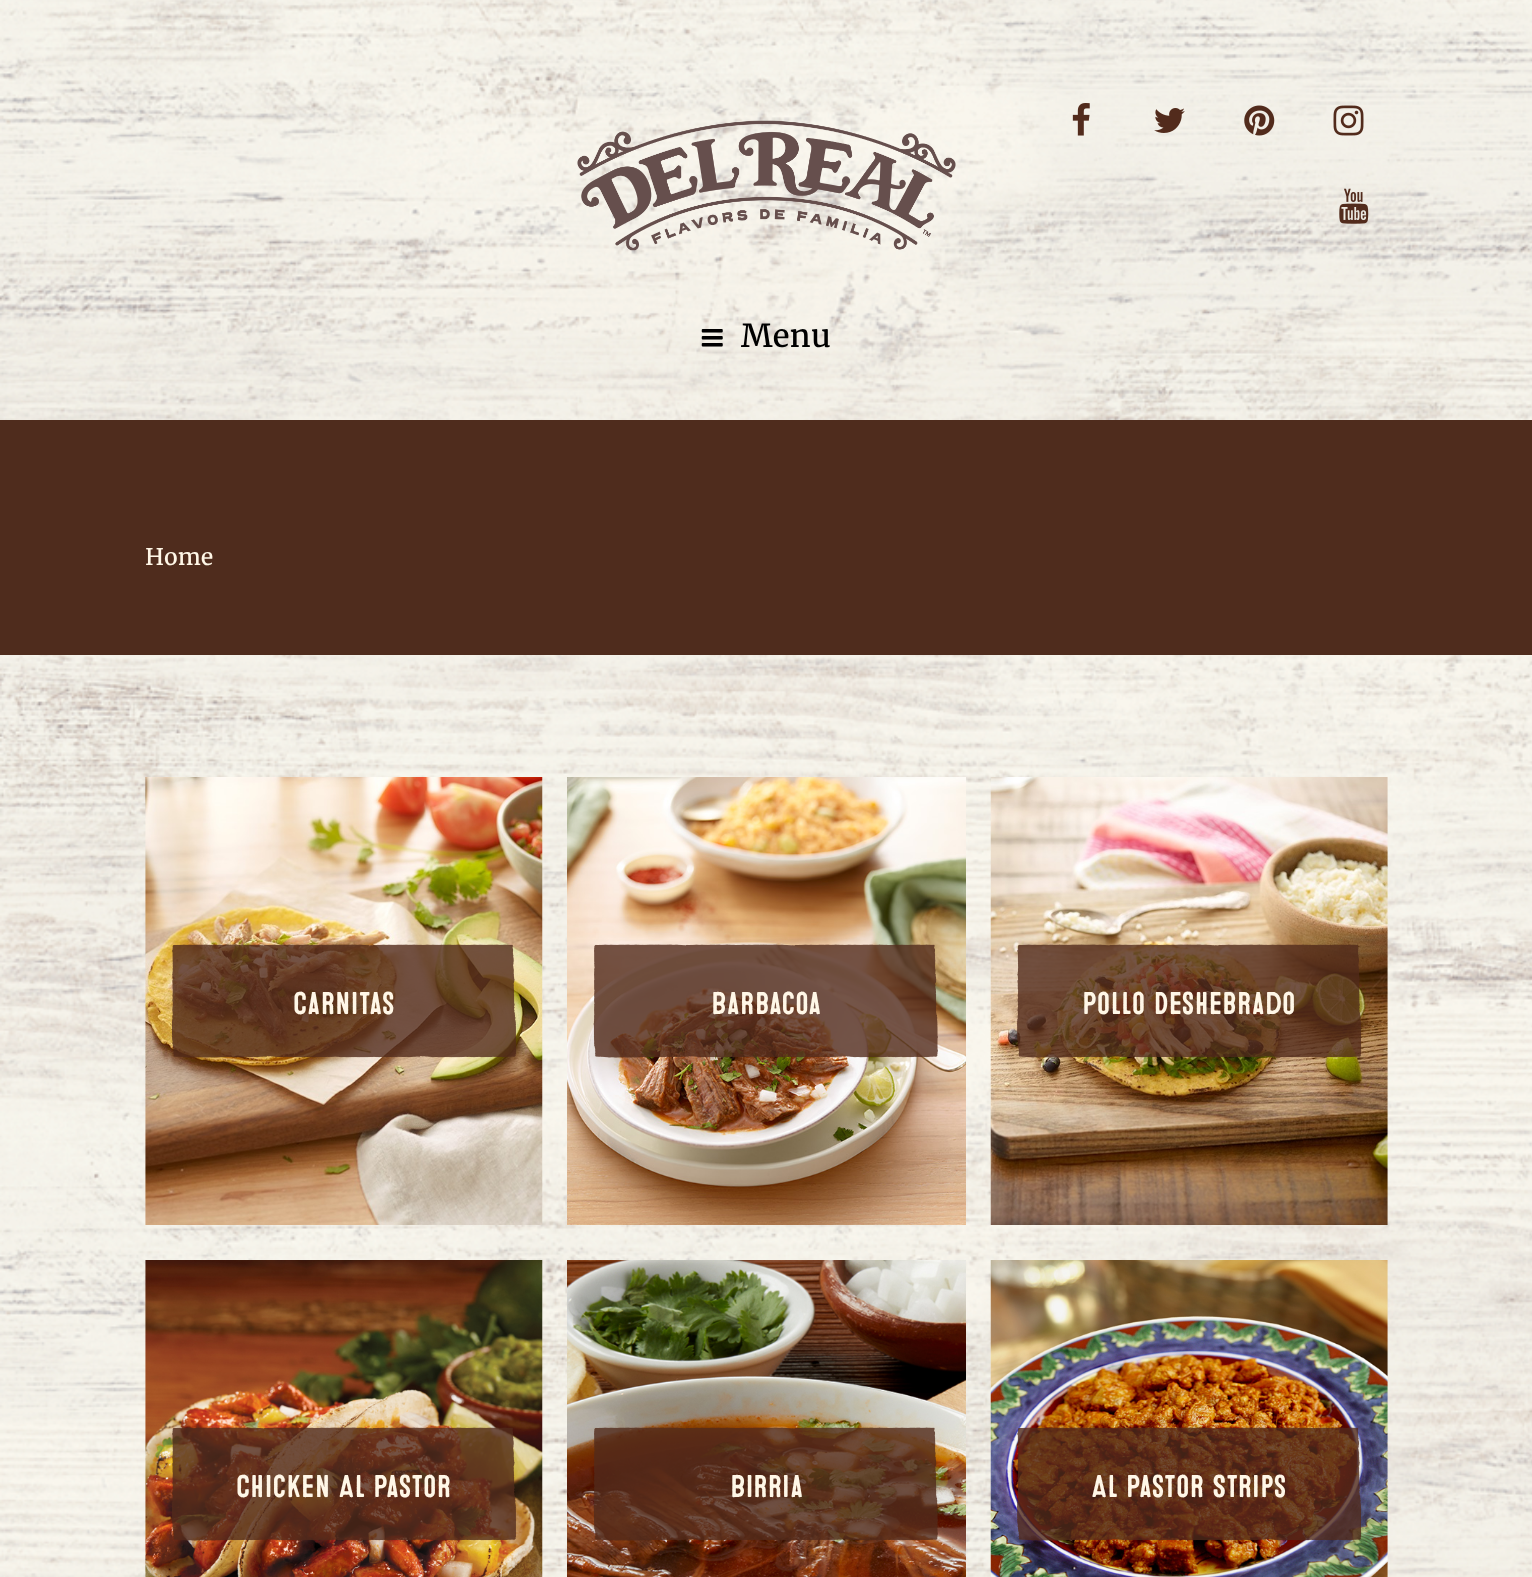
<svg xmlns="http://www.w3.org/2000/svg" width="1532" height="1577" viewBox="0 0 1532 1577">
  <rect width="100%" height="100%" fill="rgb(255,255,255)"/>
  <image x="0" y="0" width="1532" height="1577" href="pic1.png"/>
  <image x="577" y="120" width="379" height="131" href="pic2.png"/>
  <image x="1072" y="103" width="18" height="33" href="pic3.png"/>
  <image x="1154" y="108" width="31" height="25" href="pic4.png"/>
  <image x="1244" y="105" width="31" height="31" href="pic5.png"/>
  <image x="1333" y="105" width="31" height="31" href="pic6.png"/>
  <image x="1339" y="188" width="30" height="36" href="pic7.png"/>
  <image x="701" y="329" width="22" height="18" href="pic8.png"/>
  <text x="741" y="347" font-family="Merriweather" font-size="31.5" fill="rgb(0,0,0)">Menu</text>
  <rect x="0" y="420" width="1532" height="235" fill="rgb(79,44,29)"/>
  <text x="145" y="565" font-family="Merriweather" font-size="23" fill="rgb(255,247,231)">Home</text>
  <image x="145" y="777" width="398" height="448" href="pic9.png"/>
  <image x="171" y="944" width="345" height="114" href="pic10.png"/>
  <text x="293" y="1014" font-family="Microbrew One" font-size="31.5" fill="rgb(255,247,231)">Carnitas</text>
  <image x="567" y="777" width="399" height="448" href="pic11.png"/>
  <image x="593" y="944" width="345" height="114" href="pic12.png"/>
  <text x="711" y="1014" font-family="Microbrew One" font-size="31.5" fill="rgb(255,247,231)">Barbacoa</text>
  <image x="990" y="777" width="398" height="448" href="pic13.png"/>
  <image x="1016" y="944" width="346" height="114" href="pic14.png"/>
  <text x="1082" y="1014" font-family="Microbrew One" font-size="31.5" fill="rgb(255,247,231)">Pollo Deshebrado</text>
  <image x="145" y="1260" width="398" height="317" href="pic15.png"/>
  <image x="172" y="1427" width="345" height="114" href="pic16.png"/>
  <text x="236" y="1497" font-family="Microbrew One" font-size="31.5" fill="rgb(255,247,231)">Chicken Al Pastor</text>
  <image x="567" y="1260" width="399" height="317" href="pic17.png"/>
  <image x="593" y="1427" width="345" height="114" href="pic18.png"/>
  <text x="730" y="1497" font-family="Microbrew One" font-size="31.5" fill="rgb(255,247,231)">Birria</text>
  <image x="990" y="1260" width="398" height="317" href="pic19.png"/>
  <image x="1016" y="1427" width="346" height="114" href="pic20.png"/>
  <text x="1091" y="1497" font-family="Microbrew One" font-size="31.5" fill="rgb(255,247,231)">Al Pastor Strips</text>
</svg>
